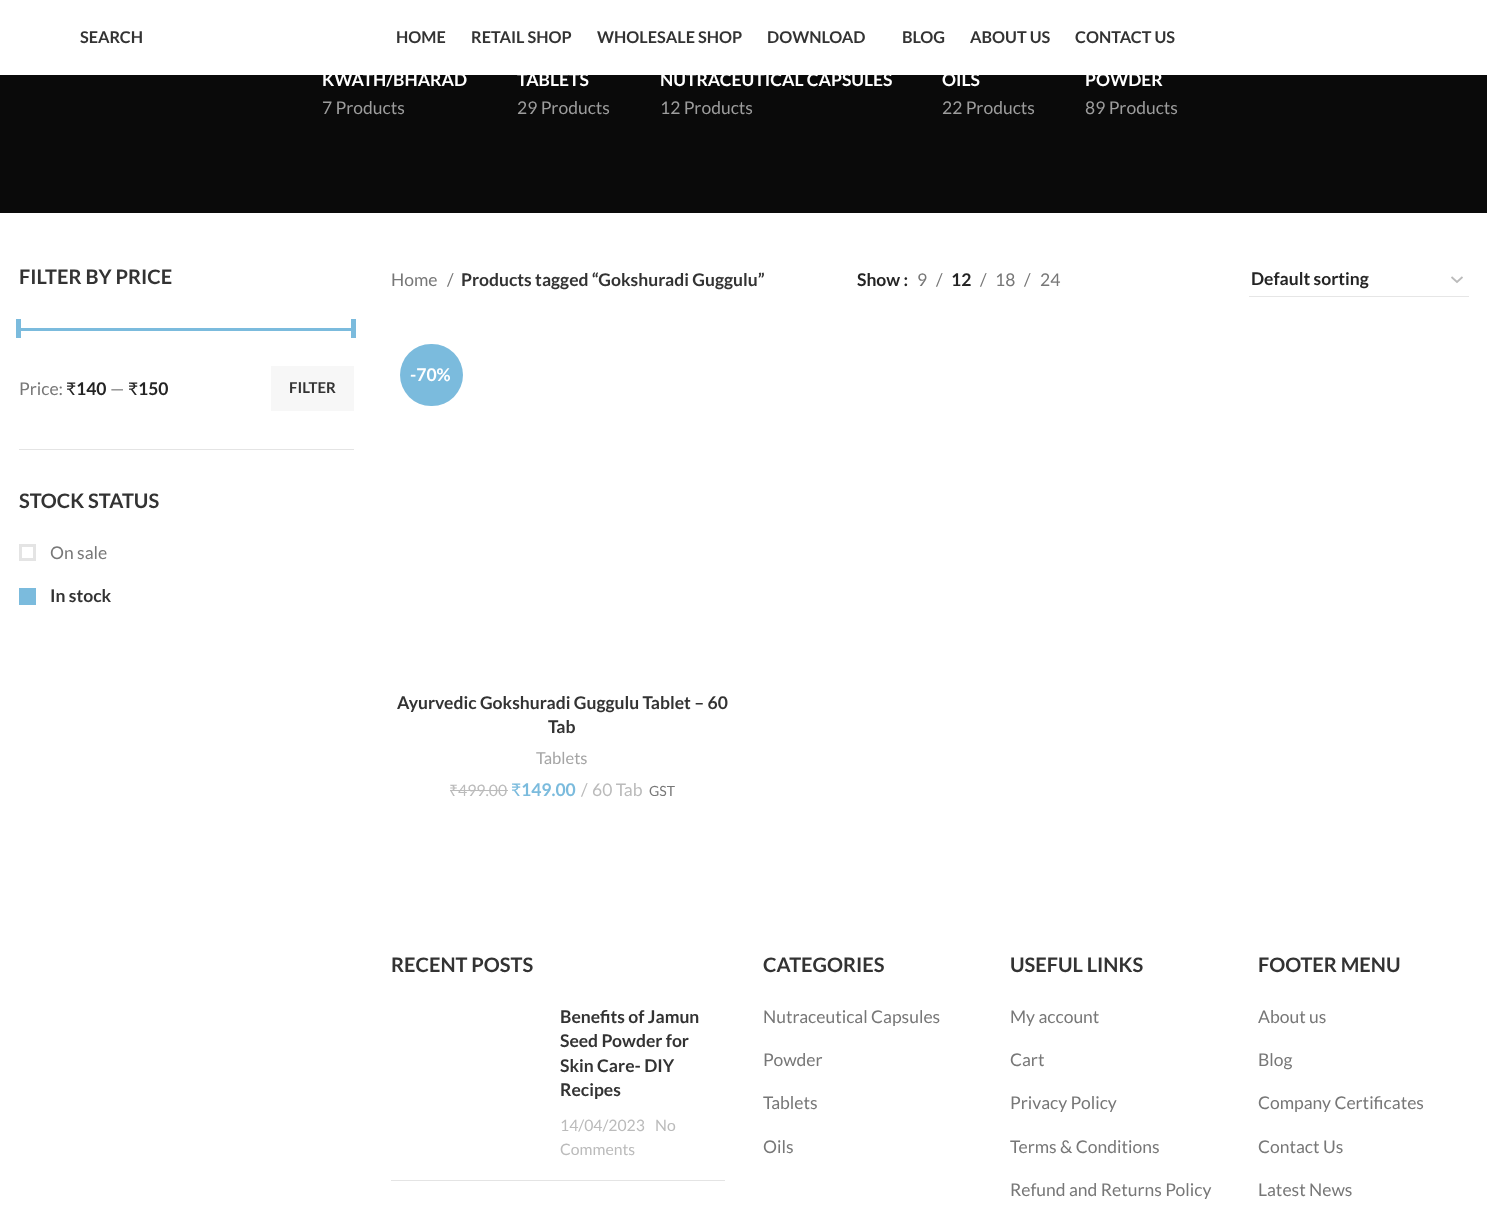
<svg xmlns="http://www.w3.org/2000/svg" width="1487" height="1207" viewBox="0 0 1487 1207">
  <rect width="100%" height="100%" fill="rgb(255,255,255)"/>
  <rect x="0" y="75" width="1487" height="138" fill="rgb(10,10,10)"/>
  <rect x="0" y="1" width="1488" height="75" fill="rgba(0,0,0,0.1)" filter="blur(2px)"/>
  <rect x="0" y="0" width="1487" height="75" fill="rgb(255,255,255)"/>
  <g font-family="Lato" font-size="16.25" font-weight="bold" fill="rgb(51,51,51)">
    <text x="80" y="43">SEARCH</text>
    <text x="396" y="43">HOME</text>
    <text x="471" y="43">RETAIL SHOP</text>
    <text x="597" y="43">WHOLESALE SHOP</text>
    <text x="767" y="43">DOWNLOAD</text>
    <text x="902" y="43">BLOG</text>
    <text x="970" y="43">ABOUT US</text>
    <text x="1075" y="43">CONTACT US</text>
  </g>
  <text x="322" y="86" font-family="Lato" font-size="17.5" font-weight="bold" fill="rgb(255,255,255)">KWATH/BHARAD</text>
  <text x="322" y="114" font-family="Lato" font-size="17.5" fill="rgb(157,157,157)">7 Products</text>
  <text x="517" y="86" font-family="Lato" font-size="17.5" font-weight="bold" fill="rgb(255,255,255)">TABLETS</text>
  <text x="517" y="114" font-family="Lato" font-size="17.5" fill="rgb(157,157,157)">29 Products</text>
  <text x="660" y="86" font-family="Lato" font-size="17.5" font-weight="bold" fill="rgb(255,255,255)">NUTRACEUTICAL CAPSULES</text>
  <text x="660" y="114" font-family="Lato" font-size="17.5" fill="rgb(157,157,157)">12 Products</text>
  <text x="942" y="86" font-family="Lato" font-size="17.5" font-weight="bold" fill="rgb(255,255,255)">OILS</text>
  <text x="942" y="114" font-family="Lato" font-size="17.5" fill="rgb(157,157,157)">22 Products</text>
  <text x="1085" y="86" font-family="Lato" font-size="17.5" font-weight="bold" fill="rgb(255,255,255)">POWDER</text>
  <text x="1085" y="114" font-family="Lato" font-size="17.5" fill="rgb(157,157,157)">89 Products</text>
  <rect x="19" y="449" width="335" height="1" fill="rgb(228,228,228)"/>
  <text x="19" y="284" font-family="Lato" font-size="20" font-weight="bold" fill="rgb(51,51,51)">FILTER BY PRICE</text>
  <rect x="19" y="328" width="335" height="3" fill="rgb(123,187,221)"/>
  <rect x="16" y="319" width="5" height="19" fill="rgb(123,187,221)"/>
  <rect x="351" y="319" width="5" height="19" fill="rgb(123,187,221)"/>
  <text x="19" y="395" font-family="Lato" font-size="17.5" fill="rgb(119,119,119)">Price:</text>
  <text x="66" y="395" font-family="'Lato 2'" font-size="17.5" fill="rgb(36,36,36)">₹</text>
  <text x="76" y="395" font-family="Lato" font-size="17.5" font-weight="bold" fill="rgb(36,36,36)">140</text>
  <text x="110" y="395" font-family="Lato" font-size="17.5" fill="rgb(119,119,119)">—</text>
  <text x="128" y="395" font-family="'Lato 2'" font-size="17.5" fill="rgb(36,36,36)">₹</text>
  <text x="138" y="395" font-family="Lato" font-size="17.5" font-weight="bold" fill="rgb(36,36,36)">150</text>
  <rect x="271" y="366" width="83" height="45" fill="rgb(247,247,247)"/>
  <text x="289" y="393" font-family="Lato" font-size="15" font-weight="bold" fill="rgb(51,51,51)">FILTER</text>
  <text x="19" y="508" font-family="Lato" font-size="20" font-weight="bold" fill="rgb(51,51,51)">STOCK STATUS</text>
  <rect x="20.5" y="545.5" width="14" height="14" fill="none" stroke="rgb(228,228,228)" stroke-width="3"/>
  <text x="50" y="559" font-family="Lato" font-size="17.5" fill="rgb(119,119,119)">On sale</text>
  <rect x="19" y="588" width="17" height="17" fill="rgb(123,187,221)"/>
  <text x="50" y="602" font-family="Lato" font-size="17.5" font-weight="bold" fill="rgb(51,51,51)">In stock</text>
  <g font-family="Lato" font-size="17.5" fill="rgb(119,119,119)">
    <text x="391" y="286">Home</text>
    <text x="447" y="286">/</text>
  </g>
  <text x="461" y="286" font-family="Lato" font-size="17.5" font-weight="bold" fill="rgb(51,51,51)">Products tagged “Gokshuradi Guggulu”</text>
  <text x="857" y="286" font-family="Lato" font-size="17.5" font-weight="bold" fill="rgb(36,36,36)">Show :</text>
  <g font-family="Lato" font-size="17.5" fill="rgb(119,119,119)">
    <text x="917" y="286">9</text>
    <text x="936" y="286">/</text>
  </g>
  <text x="951" y="286" font-family="Lato" font-size="17.5" font-weight="bold" fill="rgb(36,36,36)">12</text>
  <g font-family="Lato" font-size="17.5" fill="rgb(119,119,119)">
    <text x="980" y="286">/</text>
    <text x="995" y="286">18</text>
    <text x="1024" y="286">/</text>
    <text x="1040" y="286">24</text>
  </g>
  <path d="M1451.5 277L1457 282L1462.5 277" fill="none" stroke="rgb(187,187,187)" stroke-width="1.8"/>
  <rect x="1249" y="296" width="220" height="1" fill="rgb(230,230,230)"/>
  <text x="1251" y="285" font-family="Lato" font-size="17.5" font-weight="bold" fill="rgb(36,36,36)">Default sorting</text>
  <rect x="400" y="344" width="63" height="62" rx="31" fill="rgb(123,187,221)"/>
  <text x="410" y="381" font-family="Lato" font-size="17.5" font-weight="bold" fill="rgb(255,255,255)">-70%</text>
  <g font-family="Lato" font-size="17.5" font-weight="bold" fill="rgb(51,51,51)">
    <text x="397" y="709">Ayurvedic Gokshuradi Guggulu Tablet – 60</text>
    <text x="548" y="733">Tab</text>
  </g>
  <text x="536" y="764" font-family="Lato" font-size="16.5" fill="rgb(165,165,165)">Tablets</text>
  <text x="449" y="796" font-family="Noto Sans" font-size="15.75" fill="rgb(187,187,187)">₹</text>
  <rect x="450" y="790" width="9" height="1" fill="rgb(187,187,187)"/>
  <text x="458" y="796" font-family="Lato" font-size="15.75" fill="rgb(187,187,187)">499.00</text>
  <rect x="459" y="790" width="49" height="1" fill="rgb(187,187,187)"/>
  <text x="511" y="796" font-family="'Lato 2'" font-size="17.5" fill="rgb(123,187,221)">₹</text>
  <text x="521" y="796" font-family="Lato" font-size="17.5" font-weight="bold" fill="rgb(123,187,221)">149.00</text>
  <g font-family="Lato" font-size="17.5" fill="rgb(187,187,187)">
    <text x="581" y="796">/</text>
    <text x="592" y="796">60 Tab</text>
  </g>
  <text x="649" y="796" font-family="Lato" font-size="14" fill="rgb(119,119,119)">GST</text>
  <text x="391" y="972" font-family="Lato" font-size="20" font-weight="bold" fill="rgb(51,51,51)">RECENT POSTS</text>
  <rect x="391" y="1180" width="334" height="1" fill="rgb(228,228,228)"/>
  <g font-family="Lato" font-size="17.5" font-weight="bold" fill="rgb(51,51,51)">
    <text>
      <tspan x="560" y="1023">Benefits of Jamun</tspan>
      <tspan x="560" y="1047">Seed Powder for</tspan>
      <tspan x="560" y="1072">Skin Care- DIY</tspan>
      <tspan x="560" y="1096">Recipes</tspan>
    </text>
  </g>
  <g font-family="Lato" font-size="15.75" fill="rgb(187,187,187)">
    <text x="560" y="1131">14/04/2023</text>
    <text x="655" y="1131">No</text>
    <text x="560" y="1155">Comments</text>
  </g>
  <text x="763" y="972" font-family="Lato" font-size="20" font-weight="bold" fill="rgb(51,51,51)">CATEGORIES</text>
  <g font-family="Lato" font-size="17.5" fill="rgb(119,119,119)">
    <text x="763" y="1023">Nutraceutical Capsules</text>
    <text x="763" y="1066">Powder</text>
    <text x="763" y="1109">Tablets</text>
    <text x="763" y="1153">Oils</text>
  </g>
  <text x="1010" y="972" font-family="Lato" font-size="20" font-weight="bold" fill="rgb(51,51,51)">USEFUL LINKS</text>
  <g font-family="Lato" font-size="17.5" fill="rgb(119,119,119)">
    <text x="1010" y="1023">My account</text>
    <text x="1010" y="1066">Cart</text>
    <text x="1010" y="1109">Privacy Policy</text>
    <text x="1010" y="1153">Terms &amp; Conditions</text>
    <text x="1010" y="1196">Refund and Returns Policy</text>
  </g>
  <text x="1258" y="972" font-family="Lato" font-size="20" font-weight="bold" fill="rgb(51,51,51)">FOOTER MENU</text>
  <g font-family="Lato" font-size="17.5" fill="rgb(119,119,119)">
    <text x="1258" y="1023">About us</text>
    <text x="1258" y="1066">Blog</text>
    <text x="1258" y="1109">Company Certificates</text>
    <text x="1258" y="1153">Contact Us</text>
    <text x="1258" y="1196">Latest News</text>
  </g>
</svg>
